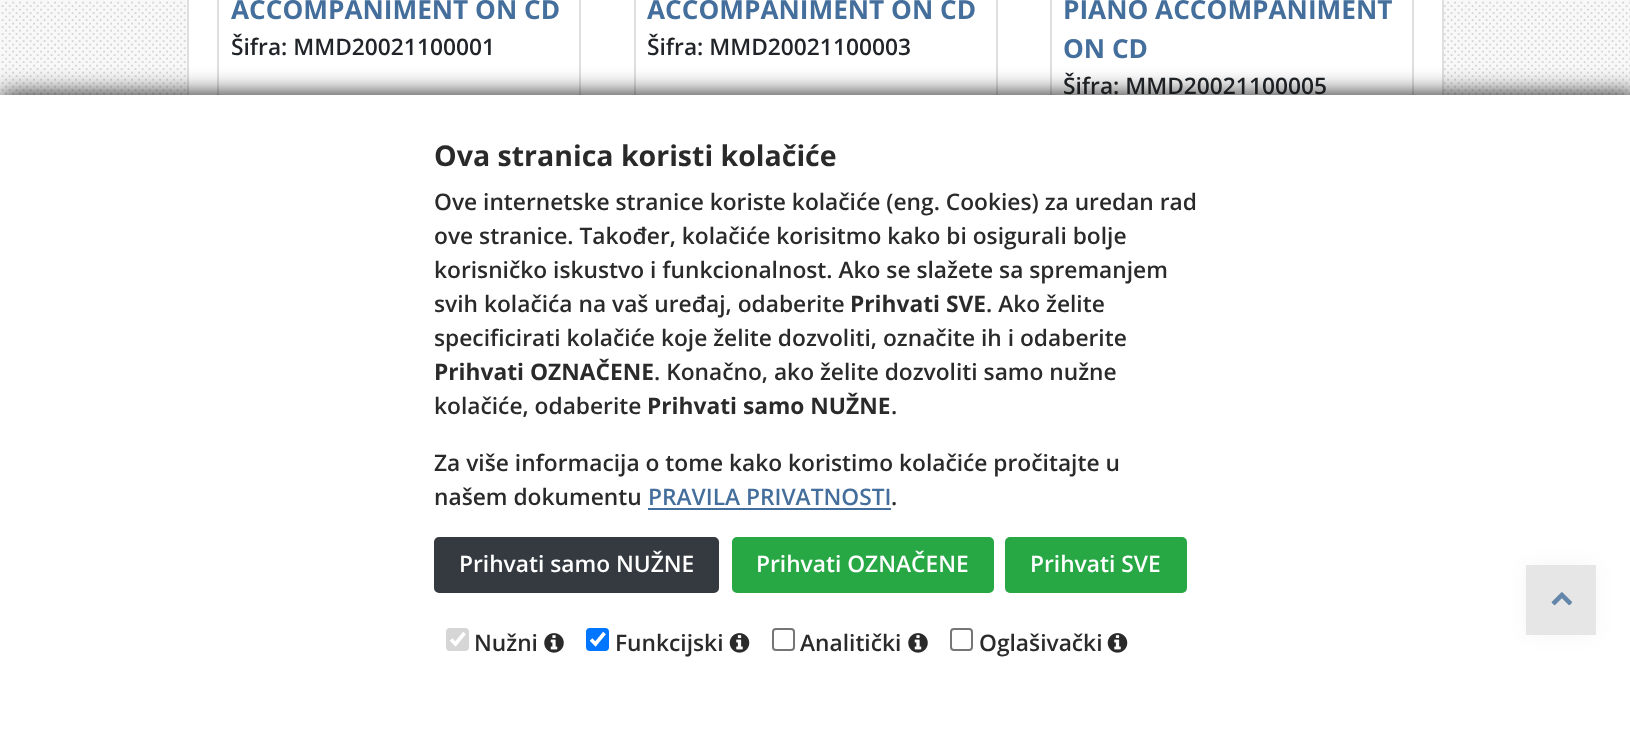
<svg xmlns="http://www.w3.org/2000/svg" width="1630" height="740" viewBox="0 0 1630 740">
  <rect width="100%" height="100%" fill="rgb(248,248,248)"/>
  <image x="1" y="1" width="1629" height="94" href="pic1.png"/>
  <rect x="189" y="0" width="1253" height="95" fill="rgb(255,255,255)"/>
  <rect x="188" y="-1" width="1255" height="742" fill="none" stroke="rgb(223,223,223)" stroke-width="2"/>
  <rect x="218" y="-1" width="362" height="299" fill="none" stroke="rgb(223,223,223)" stroke-width="2"/>
  <text x="231" y="19" font-family="Open Sans" font-size="26.2" font-weight="bold" fill="rgb(68,110,155)">ACCOMPANIMENT ON CD</text>
  <text x="231" y="55" font-family="Open Sans" font-size="22.75" font-weight="600" fill="rgb(33,37,41)">Šifra: MMD20021100001</text>
  <rect x="635" y="-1" width="362" height="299" fill="none" stroke="rgb(223,223,223)" stroke-width="2"/>
  <text x="647" y="19" font-family="Open Sans" font-size="26.2" font-weight="bold" fill="rgb(68,110,155)">ACCOMPANIMENT ON CD</text>
  <text x="647" y="55" font-family="Open Sans" font-size="22.75" font-weight="600" fill="rgb(33,37,41)">Šifra: MMD20021100003</text>
  <rect x="1051" y="-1" width="362" height="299" fill="none" stroke="rgb(223,223,223)" stroke-width="2"/>
  <g font-family="Open Sans" font-size="26.2" font-weight="bold" fill="rgb(68,110,155)">
    <text>
      <tspan x="1063" y="19">PIANO ACCOMPANIMENT</tspan>
      <tspan x="1063" y="58">ON CD</tspan>
    </text>
  </g>
  <text x="1063" y="94" font-family="Open Sans" font-size="22.75" font-weight="600" fill="rgb(33,37,41)">Šifra: MMD20021100005</text>
  <rect x="0" y="95" width="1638" height="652" fill="rgb(18,18,18)" filter="blur(12px)"/>
  <rect x="0" y="95" width="1630" height="645" fill="rgb(255,255,255)"/>
  <text x="434" y="166" font-family="Open Sans" font-size="28.5" font-weight="bold" fill="rgb(42,42,42)">Ova stranica koristi kolačiće</text>
  <g font-family="Open Sans" font-size="22.75" font-weight="600" fill="rgb(42,42,42)">
    <text>
      <tspan x="434" y="210">Ove internetske stranice koriste kolačiće (eng. Cookies) za uredan rad</tspan>
      <tspan x="434" y="244">ove stranice. Također, kolačiće korisitmo kako bi osigurali bolje</tspan>
      <tspan x="434" y="278">korisničko iskustvo i funkcionalnost. Ako se slažete sa spremanjem</tspan>
      <tspan x="434" y="312">svih kolačića na vaš uređaj, odaberite</tspan>
    </text>
  </g>
  <text x="850" y="312" font-family="Open Sans" font-size="22.75" font-weight="bold" fill="rgb(42,42,42)">Prihvati SVE</text>
  <g font-family="Open Sans" font-size="22.75" font-weight="600" fill="rgb(42,42,42)">
    <text x="986" y="312">. Ako želite</text>
    <text x="434" y="346">specificirati kolačiće koje želite dozvoliti, označite ih i odaberite</text>
  </g>
  <text x="434" y="380" font-family="Open Sans" font-size="22.75" font-weight="bold" fill="rgb(42,42,42)">Prihvati OZNAČENE</text>
  <g font-family="Open Sans" font-size="22.75" font-weight="600" fill="rgb(42,42,42)">
    <text x="654" y="380">. Konačno, ako želite dozvoliti samo nužne</text>
    <text x="434" y="414">kolačiće, odaberite</text>
  </g>
  <text x="647" y="414" font-family="Open Sans" font-size="22.75" font-weight="bold" fill="rgb(42,42,42)">Prihvati samo NUŽNE</text>
  <g font-family="Open Sans" font-size="22.75" font-weight="600" fill="rgb(42,42,42)">
    <text x="891" y="414">.</text>
    <text>
      <tspan x="434" y="471">Za više informacija o tome kako koristimo kolačiće pročitajte u</tspan>
      <tspan x="434" y="505">našem dokumentu</tspan>
    </text>
  </g>
  <text x="648" y="505" font-family="Open Sans" font-size="22.75" font-weight="600" fill="rgb(68,110,155)">PRAVILA PRIVATNOSTI</text>
  <rect x="648" y="508" width="243" height="2" fill="rgb(68,110,155)"/>
  <text x="891" y="505" font-family="Open Sans" font-size="22.75" font-weight="600" fill="rgb(42,42,42)">.</text>
  <rect x="435" y="538" width="283" height="54" rx="4" fill="rgb(52,58,64)" stroke="rgb(52,58,64)" stroke-width="2"/>
  <text x="459" y="572" font-family="Open Sans" font-size="22.75" font-weight="600" fill="rgb(255,255,255)">Prihvati samo NUŽNE</text>
  <rect x="733" y="538" width="260" height="54" rx="4" fill="rgb(40,167,69)" stroke="rgb(40,167,69)" stroke-width="2"/>
  <text x="756" y="572" font-family="Open Sans" font-size="22.75" font-weight="600" fill="rgb(255,255,255)">Prihvati OZNAČENE</text>
  <rect x="1006" y="538" width="180" height="54" rx="4" fill="rgb(40,167,69)" stroke="rgb(40,167,69)" stroke-width="2"/>
  <text x="1030" y="572" font-family="Open Sans" font-size="22.75" font-weight="600" fill="rgb(255,255,255)">Prihvati SVE</text>
  <rect x="446" y="628" width="23" height="23" rx="4" fill="rgb(214,214,214)"/>
  <path d="M451 639.5L455.5 644L464.5 633" fill="none" stroke="rgb(255,255,255)" stroke-width="3.6"/>
  <text x="474" y="651" font-family="Open Sans" font-size="22.75" font-weight="600" fill="rgb(42,42,42)">Nužni</text>
  <image x="544" y="633" width="20" height="20" href="pic2.png"/>
  <rect x="586" y="628" width="23" height="23" rx="4" fill="rgb(0,117,255)"/>
  <path d="M591 639.5L595.5 644L604.5 633" fill="none" stroke="rgb(255,255,255)" stroke-width="3.6"/>
  <text x="615" y="651" font-family="Open Sans" font-size="22.75" font-weight="600" fill="rgb(42,42,42)">Funkcijski</text>
  <image x="729" y="633" width="21" height="20" href="pic3.png"/>
  <rect x="773" y="629" width="21" height="21" rx="3" fill="none" stroke="rgb(118,118,118)" stroke-width="2"/>
  <text x="800" y="651" font-family="Open Sans" font-size="22.75" font-weight="600" fill="rgb(42,42,42)">Analitički</text>
  <image x="908" y="633" width="20" height="20" href="pic2.png"/>
  <rect x="951" y="629" width="21" height="21" rx="3" fill="none" stroke="rgb(118,118,118)" stroke-width="2"/>
  <text x="979" y="651" font-family="Open Sans" font-size="22.75" font-weight="600" fill="rgb(42,42,42)">Oglašivački</text>
  <image x="1107" y="633" width="21" height="20" href="pic3.png"/>
  <rect x="1526" y="565" width="70" height="70" fill="rgba(51,51,51,0.05)" filter="blur(9px)"/>
  <rect x="1526" y="565" width="70" height="70" fill="rgb(230,230,230)"/>
  <image x="1551" y="592" width="21" height="14" href="pic4.png"/>
</svg>
